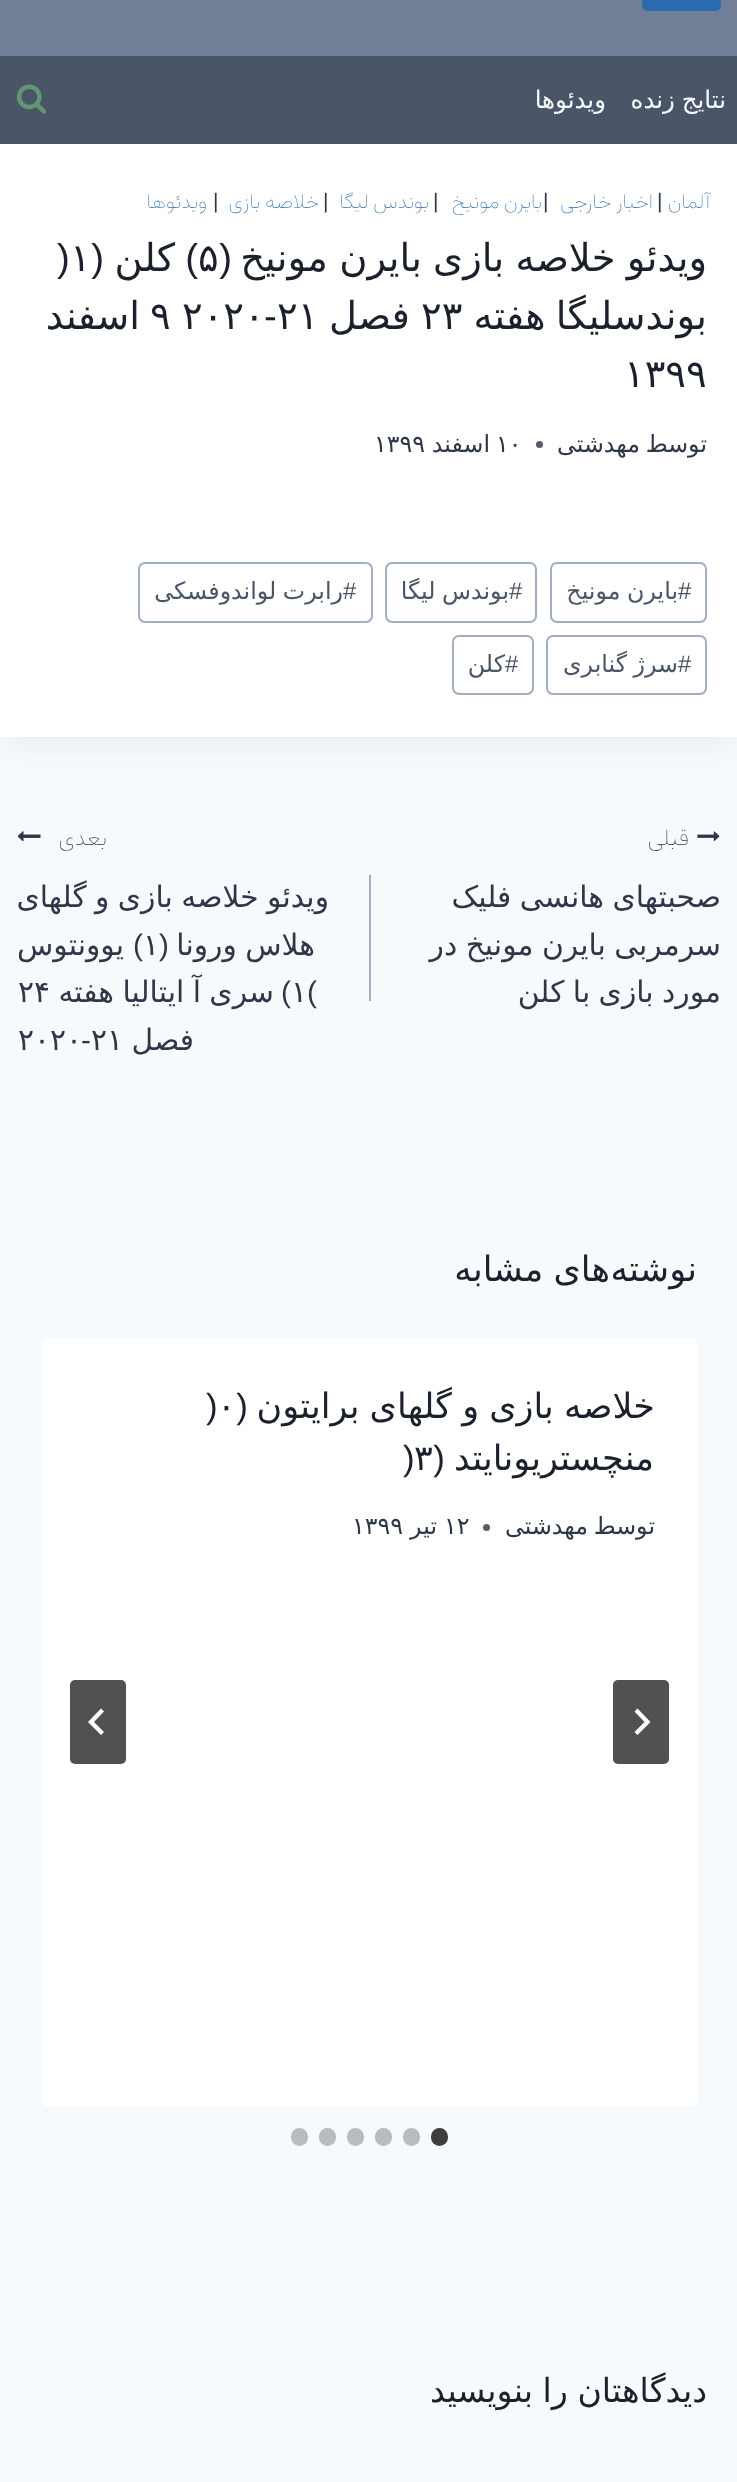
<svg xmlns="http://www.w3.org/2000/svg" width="737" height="2482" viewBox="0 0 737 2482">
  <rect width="100%" height="100%" fill="rgb(247,250,252)"/>
  <rect x="0" y="0" width="737" height="56" fill="rgb(113,128,150)"/>
  <rect x="642" y="-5" width="79" height="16" rx="5" fill="rgb(43,108,176)"/>
  <rect x="0" y="56" width="737" height="88" fill="rgb(74,85,104)"/>
  <g font-family="DejaVu Sans" font-size="24.5" direction="rtl" fill="rgb(247,250,252)">
    <text x="726" y="108" word-spacing="-1">نتایج زنده</text>
    <text x="606" y="108">ویدئوها</text>
  </g>
  <image x="16" y="84" width="31" height="30" href="pic1.png"/>
  <rect x="7" y="187" width="725" height="559" fill="rgba(0,0,0,0.05)" filter="blur(13px)"/>
  <rect x="0" y="144" width="737" height="593" fill="rgb(255,255,255)"/>
  <text x="710" y="208" font-family="Vazirmatn" font-size="21" font-weight="100" letter-spacing="1" direction="rtl" fill="rgb(43,108,176)">آلمان</text>
  <text x="657" y="208" font-family="Liberation Sans" font-size="21" letter-spacing="1" fill="rgb(45,55,72)">|</text>
  <text x="653" y="208" word-spacing="-1" font-family="Vazirmatn" font-size="21" font-weight="100" letter-spacing="1" direction="rtl" fill="rgb(43,108,176)">اخبار خارجی</text>
  <text x="543" y="208" font-family="Liberation Sans" font-size="21" letter-spacing="1" fill="rgb(45,55,72)">|</text>
  <text x="542" y="208" word-spacing="-1" font-family="Vazirmatn" font-size="21" font-weight="100" letter-spacing="1" direction="rtl" fill="rgb(43,108,176)">بایرن مونیخ</text>
  <text x="433" y="208" font-family="Liberation Sans" font-size="21" letter-spacing="1" fill="rgb(45,55,72)">|</text>
  <text x="429" y="208" word-spacing="-1" font-family="Vazirmatn" font-size="21" font-weight="100" letter-spacing="1" direction="rtl" fill="rgb(43,108,176)">بوندس لیگا</text>
  <text x="323" y="208" font-family="Liberation Sans" font-size="21" letter-spacing="1" fill="rgb(45,55,72)">|</text>
  <text x="319" y="208" word-spacing="-1" font-family="Vazirmatn" font-size="21" font-weight="100" letter-spacing="1" direction="rtl" fill="rgb(43,108,176)">خلاصه بازی</text>
  <text x="213" y="208" font-family="Liberation Sans" font-size="21" letter-spacing="1" fill="rgb(45,55,72)">|</text>
  <text x="207" y="208" font-family="Vazirmatn" font-size="21" font-weight="100" letter-spacing="1" direction="rtl" fill="rgb(43,108,176)">ویدئوها</text>
  <text x="707" y="271" word-spacing="-1" font-family="DejaVu Sans" font-size="38.5" direction="rtl" fill="rgb(26,32,44)">ویدئو خلاصه بازی بایرن مونیخ</text>
  <text x="232" y="271" font-family="Liberation Sans" font-size="38.5" direction="rtl" fill="rgb(26,32,44)">(</text>
  <text x="198" y="271" font-family="DejaVu Sans" font-size="38.5" fill="rgb(26,32,44)">۵</text>
  <text x="198" y="271" font-family="Liberation Sans" font-size="38.5" direction="rtl" fill="rgb(26,32,44)">)</text>
  <text x="175" y="271" font-family="DejaVu Sans" font-size="38.5" direction="rtl" fill="rgb(26,32,44)">کلن</text>
  <text x="104" y="271" font-family="Liberation Sans" font-size="38.5" direction="rtl" fill="rgb(26,32,44)">(</text>
  <text x="70" y="271" font-family="DejaVu Sans" font-size="38.5" fill="rgb(26,32,44)">۱</text>
  <text x="57" y="271" font-family="Liberation Sans" font-size="38.5" fill="rgb(26,32,44)">)</text>
  <text x="707" y="329" word-spacing="-2" font-family="DejaVu Sans" font-size="38.5" direction="rtl" fill="rgb(26,32,44)">بوندسلیگا هفته</text>
  <text x="421" y="329" font-family="DejaVu Sans" font-size="38.5" fill="rgb(26,32,44)">۲۳</text>
  <text x="410" y="329" font-family="DejaVu Sans" font-size="38.5" direction="rtl" fill="rgb(26,32,44)">فصل</text>
  <text x="277" y="329" font-family="DejaVu Sans" font-size="38.5" fill="rgb(26,32,44)">۲۱</text>
  <text x="264" y="329" font-family="Liberation Sans" font-size="38.5" fill="rgb(26,32,44)">-</text>
  <g font-family="DejaVu Sans" font-size="38.5" fill="rgb(26,32,44)">
    <text x="182" y="329">۲۰۲۰</text>
    <text x="150" y="329">۹</text>
  </g>
  <text x="140" y="329" font-family="DejaVu Sans" font-size="38.5" direction="rtl" fill="rgb(26,32,44)">اسفند</text>
  <text x="624" y="387" font-family="DejaVu Sans" font-size="38.5" fill="rgb(26,32,44)">۱۳۹۹</text>
  <g font-family="DejaVu Sans" font-size="23.75" direction="rtl" fill="rgb(45,55,72)">
    <text x="707" y="452">توسط</text>
    <text x="640" y="452">مهدشتی</text>
  </g>
  <circle cx="539.5" cy="444.5" r="3.5" fill="rgb(87,95,109)"/>
  <text x="496" y="452" font-family="DejaVu Sans" font-size="23.75" fill="rgb(45,55,72)">۱۰</text>
  <text x="490" y="452" font-family="DejaVu Sans" font-size="23.75" direction="rtl" fill="rgb(45,55,72)">اسفند</text>
  <text x="374" y="452" font-family="DejaVu Sans" font-size="23.75" fill="rgb(45,55,72)">۱۳۹۹</text>
  <rect x="551" y="563" width="155" height="59" rx="6" fill="none" stroke="rgb(160,174,192)" stroke-width="2"/>
  <text x="678" y="599" font-family="Liberation Sans" font-size="23.75" fill="rgb(74,85,104)">#</text>
  <text x="678" y="599" word-spacing="-1" font-family="DejaVu Sans" font-size="23.75" direction="rtl" fill="rgb(74,85,104)">بایرن مونیخ</text>
  <rect x="386" y="563" width="150" height="59" rx="6" fill="none" stroke="rgb(160,174,192)" stroke-width="2"/>
  <text x="509" y="599" font-family="Liberation Sans" font-size="23.75" fill="rgb(74,85,104)">#</text>
  <text x="509" y="599" word-spacing="-1" font-family="DejaVu Sans" font-size="23.75" direction="rtl" fill="rgb(74,85,104)">بوندس لیگا</text>
  <rect x="139" y="563" width="233" height="59" rx="6" fill="none" stroke="rgb(160,174,192)" stroke-width="2"/>
  <text x="343" y="599" font-family="Liberation Sans" font-size="23.75" fill="rgb(74,85,104)">#</text>
  <text x="343" y="599" word-spacing="-1" font-family="DejaVu Sans" font-size="23.75" direction="rtl" fill="rgb(74,85,104)">رابرت لواندوفسکی</text>
  <rect x="547" y="636" width="159" height="58" rx="6" fill="none" stroke="rgb(160,174,192)" stroke-width="2"/>
  <text x="678" y="672" font-family="Liberation Sans" font-size="23.75" fill="rgb(74,85,104)">#</text>
  <text x="678" y="672" word-spacing="-1" font-family="DejaVu Sans" font-size="23.75" direction="rtl" fill="rgb(74,85,104)">سرژ گنابری</text>
  <rect x="453" y="636" width="80" height="58" rx="6" fill="none" stroke="rgb(160,174,192)" stroke-width="2"/>
  <text x="505" y="672" font-family="Liberation Sans" font-size="23.75" fill="rgb(74,85,104)">#</text>
  <text x="505" y="672" font-family="DejaVu Sans" font-size="23.75" direction="rtl" fill="rgb(74,85,104)">کلن</text>
  <image x="697" y="831" width="23" height="11" href="pic2.png"/>
  <text x="689" y="845" font-family="Vazirmatn" font-size="23.75" font-weight="100" letter-spacing="1" direction="rtl" fill="rgb(45,55,72)">قبلی</text>
  <g font-family="DejaVu Sans" font-size="29.75" direction="rtl" fill="rgb(45,55,72)">
    <text>
      <tspan x="721" y="907" word-spacing="-1">صحبتهای هانسی فلیک</tspan>
      <tspan x="721" y="955" word-spacing="-1">سرمربی بایرن مونیخ در</tspan>
      <tspan x="721" y="1002" word-spacing="-1">مورد بازی با کلن</tspan>
    </text>
  </g>
  <rect x="369" y="875" width="2" height="126" fill="rgb(160,174,192)"/>
  <text x="107" y="845" font-family="Vazirmatn" font-size="23.75" font-weight="100" letter-spacing="1" direction="rtl" fill="rgb(45,55,72)">بعدی</text>
  <image x="18" y="831" width="23" height="11" href="pic3.png"/>
  <g font-family="DejaVu Sans" font-size="29.75" direction="rtl" fill="rgb(45,55,72)">
    <text x="329" y="907" word-spacing="-1">ویدئو خلاصه بازی و گلهای</text>
    <text x="315" y="955" word-spacing="-1">هلاس ورونا</text>
  </g>
  <text x="169" y="955" font-family="Liberation Sans" font-size="29.75" direction="rtl" fill="rgb(45,55,72)">(</text>
  <text x="143" y="955" font-family="DejaVu Sans" font-size="29.75" fill="rgb(45,55,72)">۱</text>
  <text x="143" y="955" font-family="Liberation Sans" font-size="29.75" direction="rtl" fill="rgb(45,55,72)">)</text>
  <text x="124" y="955" font-family="DejaVu Sans" font-size="29.75" direction="rtl" fill="rgb(45,55,72)">یوونتوس</text>
  <text x="307" y="1002" font-family="Liberation Sans" font-size="29.75" fill="rgb(45,55,72)">(</text>
  <text x="291" y="1002" font-family="DejaVu Sans" font-size="29.75" fill="rgb(45,55,72)">۱</text>
  <text x="291" y="1002" font-family="Liberation Sans" font-size="29.75" direction="rtl" fill="rgb(45,55,72)">)</text>
  <text x="274" y="1002" word-spacing="-1" font-family="DejaVu Sans" font-size="29.75" direction="rtl" fill="rgb(45,55,72)">سری آ ایتالیا هفته</text>
  <text x="18" y="1002" font-family="DejaVu Sans" font-size="29.75" fill="rgb(45,55,72)">۲۴</text>
  <text x="194" y="1050" font-family="DejaVu Sans" font-size="29.75" direction="rtl" fill="rgb(45,55,72)">فصل</text>
  <text x="91" y="1050" font-family="DejaVu Sans" font-size="29.75" fill="rgb(45,55,72)">۲۱</text>
  <text x="81" y="1050" font-family="Liberation Sans" font-size="29.75" fill="rgb(45,55,72)">-</text>
  <text x="18" y="1050" font-family="DejaVu Sans" font-size="29.75" fill="rgb(45,55,72)">۲۰۲۰</text>
  <g font-family="DejaVu Sans" font-size="35" direction="rtl" fill="rgb(26,32,44)">
    <text x="697" y="1281">نوشته</text>
    <text x="610" y="1281" word-spacing="-1">های مشابه</text>
  </g>
  <rect x="42" y="1337" width="655" height="770" rx="7" fill="rgb(255,255,255)"/>
  <text x="655" y="1418" word-spacing="-1" font-family="DejaVu Sans" font-size="35" direction="rtl" fill="rgb(26,32,44)">خلاصه بازی و گلهای برایتون</text>
  <text x="248" y="1418" font-family="Liberation Sans" font-size="35" direction="rtl" fill="rgb(26,32,44)">(</text>
  <text x="217" y="1418" font-family="DejaVu Sans" font-size="35" fill="rgb(26,32,44)">۰</text>
  <text x="206" y="1418" font-family="Liberation Sans" font-size="35" fill="rgb(26,32,44)">)</text>
  <text x="654" y="1470" font-family="DejaVu Sans" font-size="35" direction="rtl" fill="rgb(26,32,44)">منچستریونایتد</text>
  <text x="445" y="1470" font-family="Liberation Sans" font-size="35" direction="rtl" fill="rgb(26,32,44)">(</text>
  <text x="414" y="1470" font-family="DejaVu Sans" font-size="35" fill="rgb(26,32,44)">۳</text>
  <text x="403" y="1470" font-family="Liberation Sans" font-size="35" fill="rgb(26,32,44)">)</text>
  <g font-family="DejaVu Sans" font-size="23.75" direction="rtl" fill="rgb(45,55,72)">
    <text x="655" y="1534">توسط</text>
    <text x="588" y="1534">مهدشتی</text>
  </g>
  <circle cx="486.5" cy="1527.5" r="3.5" fill="rgb(87,95,109)"/>
  <text x="444" y="1534" font-family="DejaVu Sans" font-size="23.75" fill="rgb(45,55,72)">۱۲</text>
  <text x="437" y="1534" font-family="DejaVu Sans" font-size="23.75" direction="rtl" fill="rgb(45,55,72)">تیر</text>
  <text x="352" y="1534" font-family="DejaVu Sans" font-size="23.75" fill="rgb(45,55,72)">۱۳۹۹</text>
  <rect x="613" y="1680" width="56" height="84" rx="5" fill="rgb(81,81,81)"/>
  <path d="M637.5 1708.5L634.5 1711.5L644.5 1722L634.5 1732L637.5 1735L650.5 1722Z" fill="rgb(255,255,255)"/>
  <rect x="70" y="1680" width="56" height="84" rx="5" fill="rgb(81,81,81)"/>
  <path d="M101 1708.5L104 1711.5L94 1722L104 1732L101 1735L88 1722Z" fill="rgb(255,255,255)"/>
  <rect x="431" y="2128" width="17" height="18" rx="8.5" fill="rgb(62,63,63)"/>
  <rect x="403" y="2128" width="17" height="18" rx="8.5" fill="rgb(185,188,189)"/>
  <rect x="375" y="2128" width="17" height="18" rx="8.5" fill="rgb(185,188,189)"/>
  <rect x="347" y="2128" width="17" height="18" rx="8.5" fill="rgb(185,188,189)"/>
  <rect x="319" y="2128" width="17" height="18" rx="8.5" fill="rgb(185,188,189)"/>
  <rect x="291" y="2128" width="17" height="18" rx="8.5" fill="rgb(185,188,189)"/>
  <text x="707" y="2402" word-spacing="-1" font-family="DejaVu Sans" font-size="33.25" direction="rtl" fill="rgb(26,32,44)">دیدگاهتان را بنویسید</text>
</svg>
